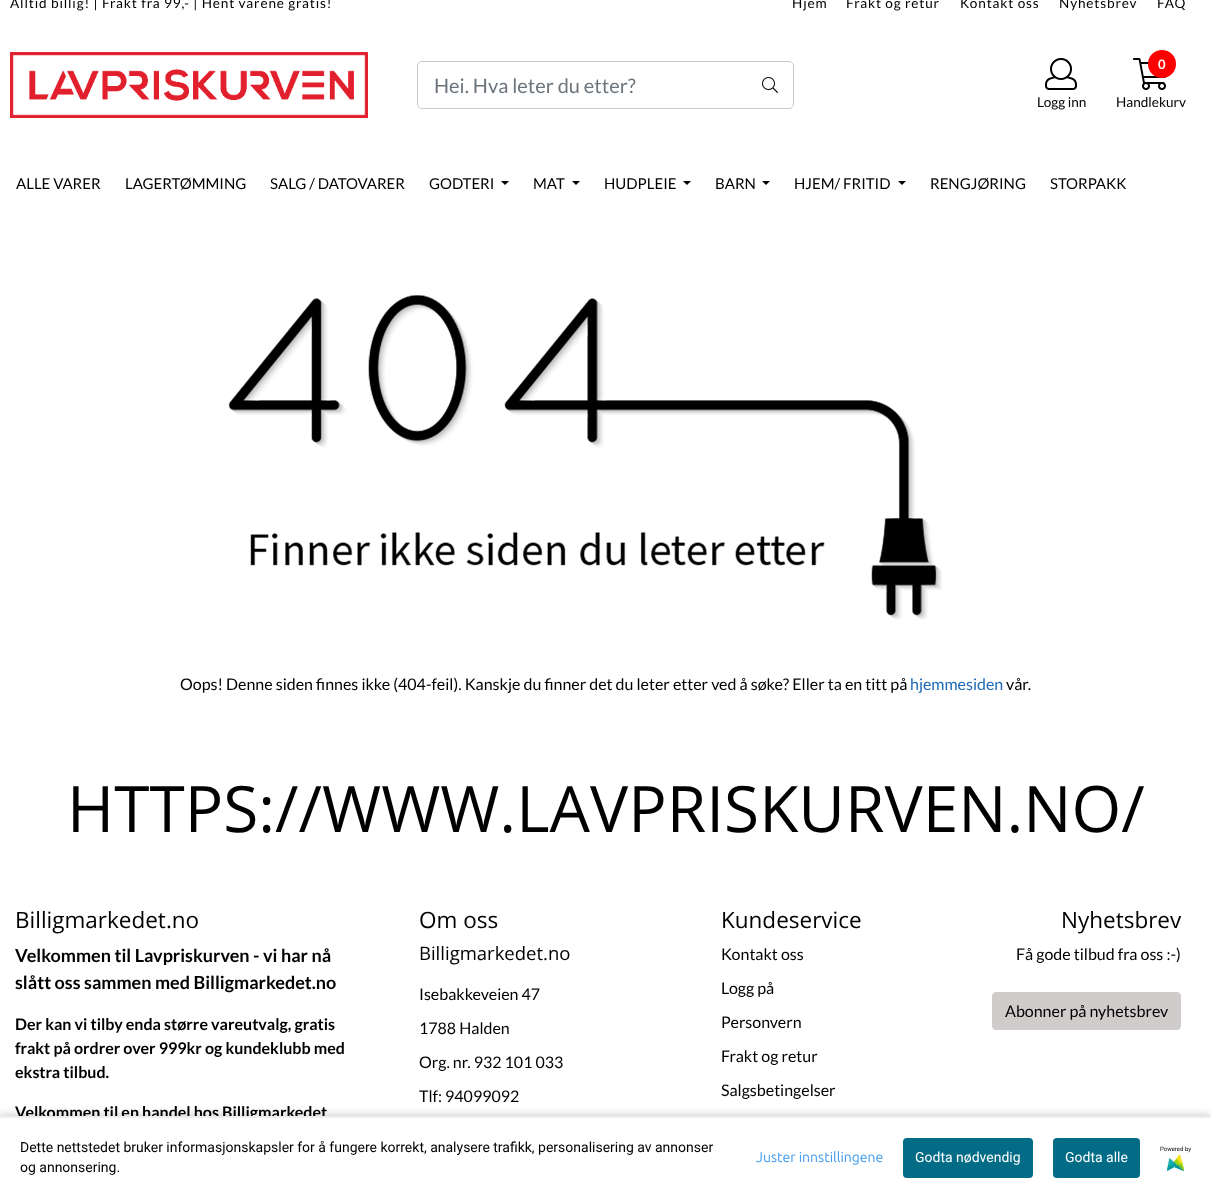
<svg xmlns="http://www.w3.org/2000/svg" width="1211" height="1198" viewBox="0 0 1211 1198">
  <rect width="100%" height="100%" fill="rgb(255,255,255)"/>
  <g font-family="Lato" font-size="13.6" letter-spacing="0.85" fill="rgb(0,0,0)">
    <text x="10" y="8">Alltid billig! | Frakt fra 99,- | Hent varene gratis!</text>
    <text x="792" y="8">Hjem</text>
    <text x="846" y="8">Frakt og retur</text>
    <text x="960" y="8">Kontakt oss</text>
    <text x="1059" y="8">Nyhetsbrev</text>
    <text x="1157" y="8">FAQ</text>
  </g>
  <image x="10" y="52" width="358" height="66" href="pic1.png"/>
  <rect x="417.5" y="61.5" width="376" height="47" rx="4.5" fill="none" stroke="rgb(202,202,202)"/>
  <text x="434" y="93" font-family="Lato" font-size="20" fill="rgb(108,117,125)">Hei. Hva leter du etter?</text>
  <image x="762" y="77" width="16" height="16" href="pic2.png"/>
  <image x="1045" y="58" width="32" height="32" href="pic3.png"/>
  <text x="1037" y="107" font-family="Lato" font-size="13.6" fill="rgb(0,0,0)">Logg inn</text>
  <image x="1133" y="58" width="34" height="32" href="pic4.png"/>
  <circle cx="1162" cy="64" r="13" fill="rgb(255,0,0)" stroke="rgb(255,0,0)" stroke-width="2"/>
  <text x="1158" y="69" font-family="Lato" font-size="13" font-weight="bold" fill="rgb(255,255,255)">0</text>
  <text x="1116" y="107" font-family="Lato" font-size="13.6" fill="rgb(0,0,0)">Handlekurv</text>
  <g font-family="Lato" font-size="15" fill="rgb(0,0,0)">
    <text x="16" y="189">ALLE VARER</text>
    <text x="125" y="189">LAGERTØMMING</text>
    <text x="270" y="189">SALG / DATOVARER</text>
    <text x="429" y="189">GODTERI</text>
  </g>
  <path d="M501 181H509L505 185Z" fill="rgb(0,0,0)"/>
  <text x="533" y="189" font-family="Lato" font-size="15" fill="rgb(0,0,0)">MAT</text>
  <path d="M572 181H580L576 185Z" fill="rgb(0,0,0)"/>
  <text x="604" y="189" font-family="Lato" font-size="15" fill="rgb(0,0,0)">HUDPLEIE</text>
  <path d="M683 181H691L687 185Z" fill="rgb(0,0,0)"/>
  <text x="715" y="189" font-family="Lato" font-size="15" fill="rgb(0,0,0)">BARN</text>
  <path d="M762 181H770L766 185Z" fill="rgb(0,0,0)"/>
  <text x="794" y="189" font-family="Lato" font-size="15" fill="rgb(0,0,0)">HJEM/ FRITID</text>
  <path d="M898 181H906L902 185Z" fill="rgb(0,0,0)"/>
  <g font-family="Lato" font-size="15" fill="rgb(0,0,0)">
    <text x="930" y="189">RENGJØRING</text>
    <text x="1050" y="189">STORPAKK</text>
  </g>
  <image x="228" y="294" width="715" height="326" href="pic5.png"/>
  <text x="180" y="690" font-family="Lato" font-size="16" fill="rgb(0,0,0)">Oops! Denne siden finnes ikke (404-feil). Kanskje du finner det du leter etter ved å søke? Eller ta en titt på</text>
  <text x="910" y="690" font-family="Lato" font-size="16" fill="rgb(30,105,181)">hjemmesiden</text>
  <text x="1006" y="690" font-family="Lato" font-size="16" fill="rgb(0,0,0)">vår.</text>
  <text x="67" y="832" font-family="Open Sans" font-size="64" fill="rgb(0,0,0)">HTTPS://WWW.LAVPRISKURVEN.NO/</text>
  <text x="15" y="928" font-family="Open Sans" font-size="22.5" fill="rgb(0,0,0)">Billigmarkedet.no</text>
  <g font-family="Lato" font-size="18" font-weight="bold" fill="rgb(0,0,0)">
    <text>
      <tspan x="15" y="962">Velkommen til Lavpriskurven - vi har nå</tspan>
      <tspan x="15" y="989">slått oss sammen med Billigmarkedet.no</tspan>
    </text>
  </g>
  <g font-family="Lato" font-size="16" font-weight="bold" fill="rgb(0,0,0)">
    <text>
      <tspan x="15" y="1030">Der kan vi tilby enda større vareutvalg, gratis</tspan>
      <tspan x="15" y="1054">frakt på ordrer over 999kr og kundeklubb med</tspan>
      <tspan x="15" y="1078">ekstra tilbud.</tspan>
    </text>
    <text x="15" y="1118">Velkommen til en handel hos Billigmarkedet</text>
  </g>
  <text x="419" y="928" font-family="Open Sans" font-size="22.5" fill="rgb(0,0,0)">Om oss</text>
  <text x="419" y="960" font-family="Open Sans" font-size="18.5" fill="rgb(0,0,0)">Billigmarkedet.no</text>
  <g font-family="Lato" font-size="16" fill="rgb(0,0,0)">
    <text x="419" y="1000">Isebakkeveien 47</text>
    <text x="419" y="1034">1788 Halden</text>
    <text x="419" y="1068">Org. nr. 932 101 033</text>
    <text x="419" y="1102">Tlf: 94099092</text>
  </g>
  <text x="721" y="928" font-family="Open Sans" font-size="22.5" fill="rgb(0,0,0)">Kundeservice</text>
  <g font-family="Lato" font-size="16" fill="rgb(0,0,0)">
    <text x="721" y="960">Kontakt oss</text>
    <text x="721" y="994">Logg på</text>
    <text x="721" y="1028">Personvern</text>
    <text x="721" y="1062">Frakt og retur</text>
    <text x="721" y="1096">Salgsbetingelser</text>
  </g>
  <text x="1061" y="928" font-family="Open Sans" font-size="22.5" fill="rgb(0,0,0)">Nyhetsbrev</text>
  <text x="1016" y="960" font-family="Lato" font-size="16" fill="rgb(0,0,0)">Få gode tilbud fra oss :-)</text>
  <rect x="992.5" y="992.5" width="188" height="37" rx="3.5" fill="rgb(208,204,204)" stroke="rgb(208,204,204)"/>
  <text x="1005" y="1017" font-family="Lato" font-size="16" fill="rgb(0,0,0)">Abonner på nyhetsbrev</text>
  <rect x="0" y="1116" width="1211" height="82" fill="rgba(0,0,0,0.25)" filter="blur(5px)"/>
  <rect x="0" y="1118" width="1211" height="80" fill="rgb(255,255,255)"/>
  <rect x="0" y="1116" width="1211" height="2" fill="rgb(238,238,238)"/>
  <g font-family="Roboto" font-size="14" fill="rgb(0,0,0)">
    <text>
      <tspan x="20" y="1152">Dette nettstedet bruker informasjonskapsler for å fungere korrekt, analysere trafikk, personalisering av annonser</tspan>
      <tspan x="20" y="1172">og annonsering.</tspan>
    </text>
  </g>
  <text x="756" y="1162" font-family="Ubuntu" font-size="14" fill="rgb(64,154,239)">Juster innstillingene</text>
  <text x="1160" y="1151" font-family="Roboto" font-size="6" fill="rgb(0,0,0)">Powered by</text>
  <image x="1167" y="1154" width="17" height="17" href="pic6.png"/>
  <rect x="903" y="1138" width="130" height="40" rx="4" fill="rgb(2,107,133)"/>
  <text x="915" y="1162" font-family="Roboto" font-size="14" fill="rgb(255,255,255)">Godta nødvendig</text>
  <rect x="1053" y="1138" width="87" height="40" rx="4" fill="rgb(2,107,133)"/>
  <text x="1065" y="1162" font-family="Roboto" font-size="14" fill="rgb(255,255,255)">Godta alle</text>
</svg>
